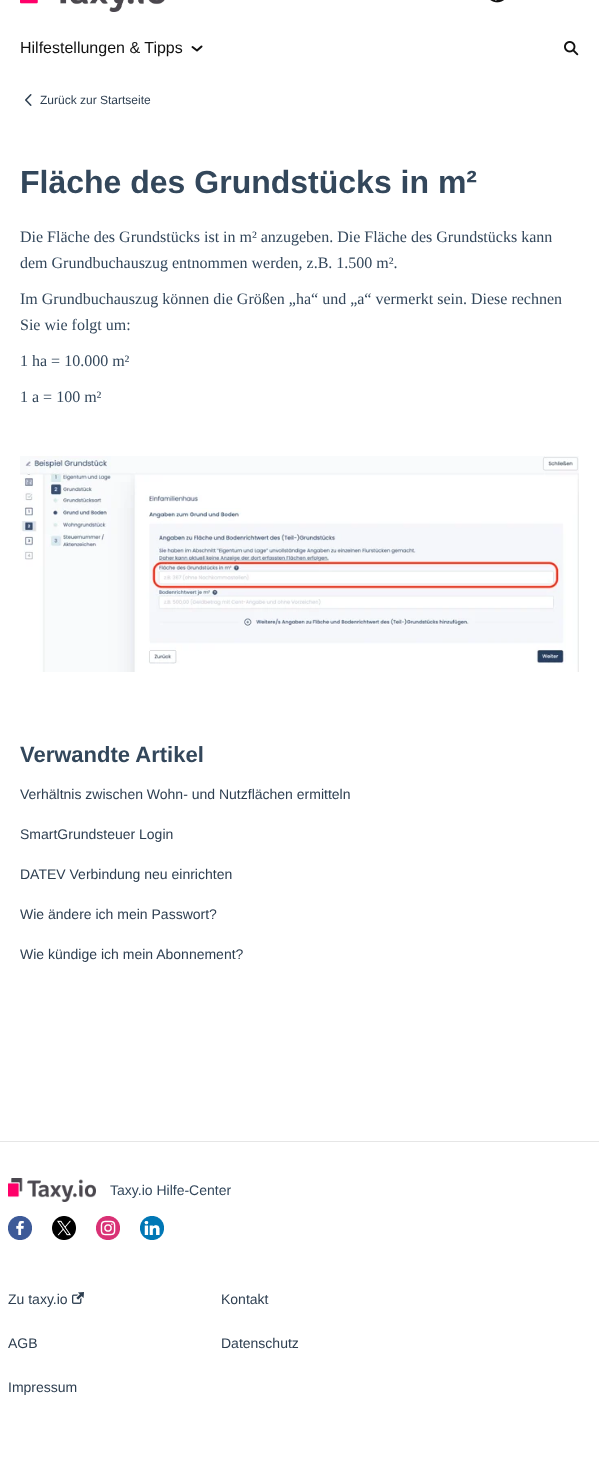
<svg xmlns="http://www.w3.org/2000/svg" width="599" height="1480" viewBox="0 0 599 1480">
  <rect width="100%" height="100%" fill="rgb(255,255,255)"/>
  <image x="20" y="0" width="145" height="12" href="pic1.png"/>
  <image x="490" y="0" width="14" height="3" href="pic2.png"/>
  <text x="20" y="53" font-family="Liberation Sans" font-size="16" fill="rgb(17,17,17)">Hilfestellungen &amp; Tipps</text>
  <path d="M201.5 46.5L197 50.5L192.5 47" fill="none" stroke="rgb(17,17,17)" stroke-width="2" stroke-linecap="round" stroke-linejoin="round"/>
  <image x="564" y="41" width="15" height="15" href="pic3.png"/>
  <image x="25" y="94" width="7" height="12" href="pic4.png"/>
  <text x="40" y="104" font-family="Liberation Sans" font-size="12" fill="rgb(45,62,80)">Zurück zur Startseite</text>
  <text x="20" y="193" font-family="Liberation Sans" font-size="32" font-weight="bold" fill="rgb(51,71,91)">Fläche des Grundstücks in m²</text>
  <g font-family="Liberation Serif" font-size="16" fill="rgb(51,71,91)">
    <text>
      <tspan x="20" y="242">Die Fläche des Grundstücks ist in m² anzugeben. Die Fläche des Grundstücks kann</tspan>
      <tspan x="20" y="268">dem Grundbuchauszug entnommen werden, z.B. 1.500 m².</tspan>
    </text>
    <text>
      <tspan x="20" y="304">Im Grundbuchauszug können die Größen „ha“ und „a“ vermerkt sein. Diese rechnen</tspan>
      <tspan x="20" y="330">Sie wie folgt um:</tspan>
    </text>
    <text x="20" y="366">1 ha = 10.000 m²</text>
    <text x="20" y="402">1 a = 100 m²</text>
  </g>
  <image x="20" y="456" width="559" height="216" href="pic5.png"/>
  <text x="20" y="762" font-family="Liberation Sans" font-size="22" font-weight="bold" fill="rgb(51,71,91)">Verwandte Artikel</text>
  <g font-family="Liberation Sans" font-size="14" fill="rgb(45,62,80)">
    <text x="20" y="799">Verhältnis zwischen Wohn- und Nutzflächen ermitteln</text>
    <text x="20" y="839">SmartGrundsteuer Login</text>
    <text x="20" y="879">DATEV Verbindung neu einrichten</text>
    <text x="20" y="919">Wie ändere ich mein Passwort?</text>
    <text x="20" y="959">Wie kündige ich mein Abonnement?</text>
  </g>
  <rect x="0" y="1141" width="599" height="1" fill="rgb(230,230,230)"/>
  <image x="8" y="1178" width="88" height="24" href="pic6.png"/>
  <text x="110" y="1195" font-family="Liberation Sans" font-size="14" fill="rgb(51,71,91)">Taxy.io Hilfe-Center</text>
  <image x="8" y="1216" width="24" height="24" href="pic7.png"/>
  <image x="52" y="1216" width="24" height="24" href="pic8.png"/>
  <image x="96" y="1216" width="24" height="24" href="pic9.png"/>
  <image x="140" y="1216" width="24" height="24" href="pic10.png"/>
  <text x="8" y="1304" font-family="Liberation Sans" font-size="14" fill="rgb(45,62,80)">Zu taxy.io</text>
  <image x="72" y="1292" width="12" height="12" href="pic11.png"/>
  <g font-family="Liberation Sans" font-size="14" fill="rgb(45,62,80)">
    <text x="221" y="1304">Kontakt</text>
    <text x="8" y="1348">AGB</text>
    <text x="221" y="1348">Datenschutz</text>
    <text x="8" y="1392">Impressum</text>
  </g>
</svg>
